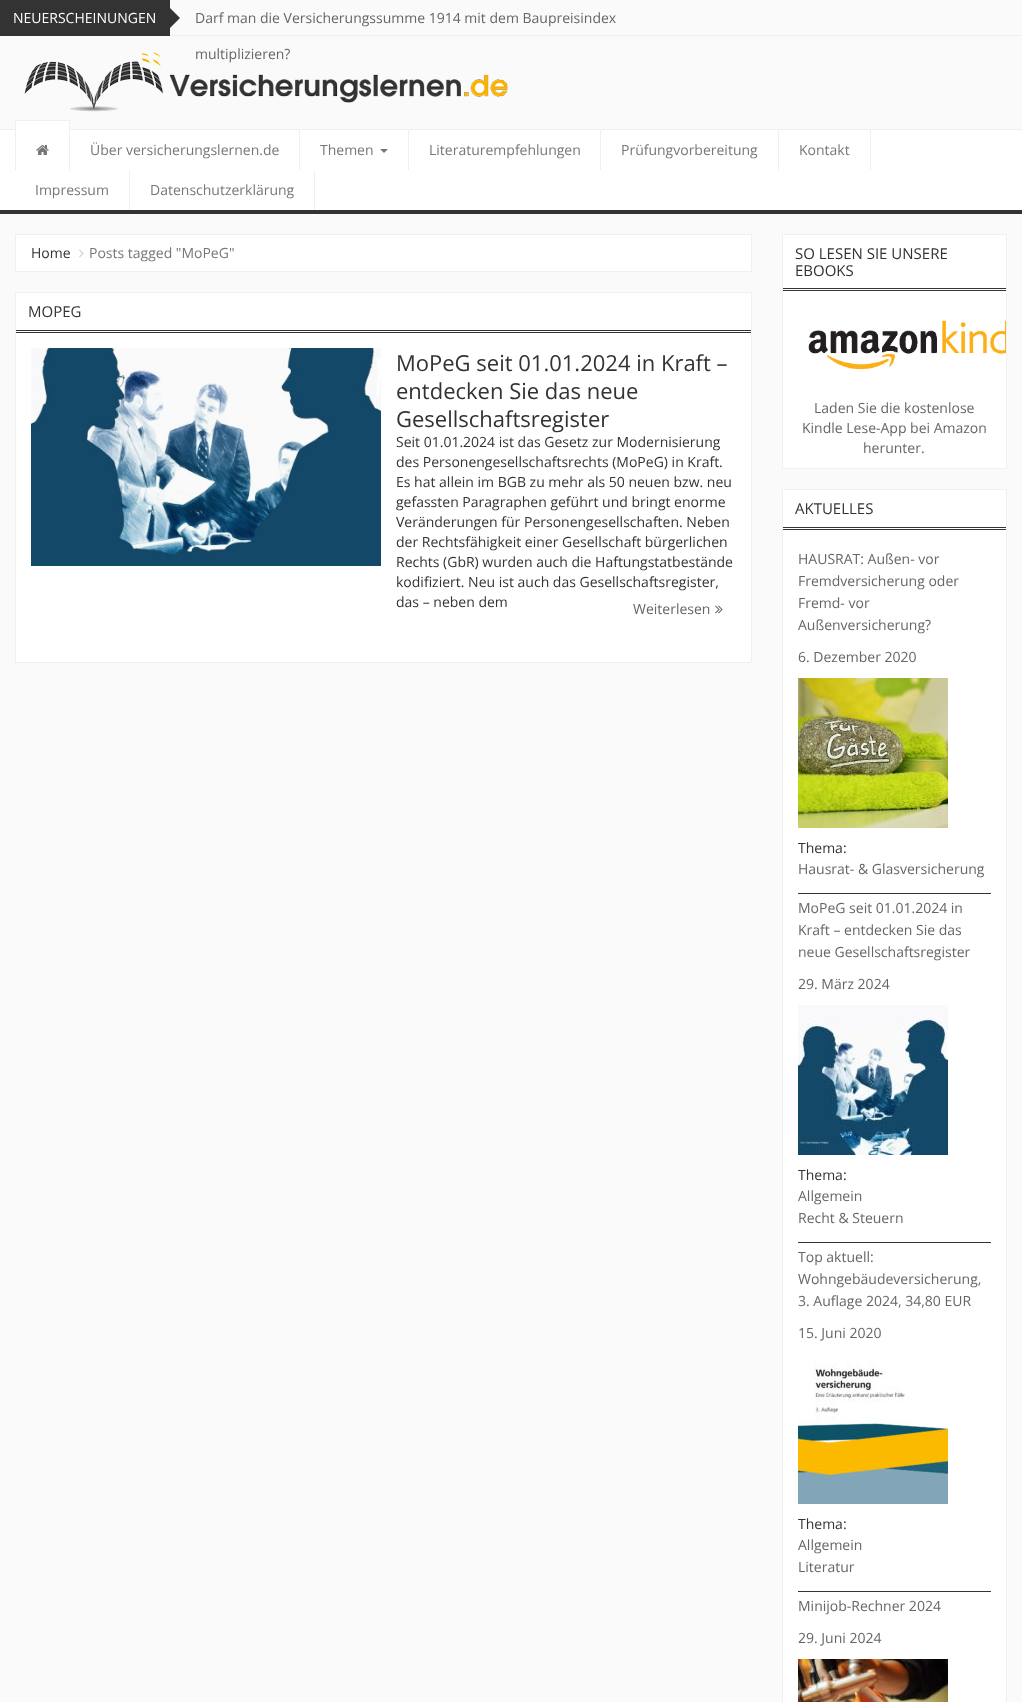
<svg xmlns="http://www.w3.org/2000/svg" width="1022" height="1702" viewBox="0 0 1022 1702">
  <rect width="100%" height="100%" fill="rgb(250,250,250)"/>
  <rect x="170" y="35" width="852" height="1" fill="rgb(240,240,240)"/>
  <rect x="0" y="0" width="170" height="36" fill="rgb(51,51,51)"/>
  <text x="13" y="23" font-family="Open Sans" font-size="14" fill="rgb(255,255,255)">NEUERSCHEINUNGEN</text>
  <path d="M170 28V8L180 18Z" fill="rgb(51,51,51)"/>
  <g font-family="Open Sans" font-size="14" fill="rgb(102,102,102)">
    <text x="195" y="23">Darf man die Versicherungssumme 1914 mit dem Baupreisindex</text>
    <text x="195" y="59">multiplizieren?</text>
  </g>
  <image x="24" y="51" width="484" height="61" href="pic1.png"/>
  <rect x="0" y="130" width="1022" height="80" fill="rgb(255,255,255)"/>
  <rect x="0" y="129" width="1022" height="1" fill="rgb(240,240,240)"/>
  <rect x="0" y="210" width="1022" height="4" fill="rgb(51,51,51)"/>
  <rect x="69" y="130" width="1" height="40" fill="rgb(240,240,240)"/>
  <rect x="15" y="130" width="1" height="40" fill="rgb(240,240,240)"/>
  <rect x="16" y="121" width="53" height="9" fill="rgb(255,255,255)"/>
  <rect x="15" y="120" width="55" height="1" fill="rgb(240,240,240)"/>
  <rect x="69" y="120" width="1" height="10" fill="rgb(240,240,240)"/>
  <rect x="15" y="120" width="1" height="10" fill="rgb(240,240,240)"/>
  <image x="36" y="145" width="13" height="10" href="pic2.png"/>
  <rect x="299" y="130" width="1" height="40" fill="rgb(240,240,240)"/>
  <text x="90" y="155" font-family="Open Sans" font-size="14" fill="rgb(119,119,119)">Über versicherungslernen.de</text>
  <rect x="408" y="130" width="1" height="40" fill="rgb(240,240,240)"/>
  <text x="320" y="155" font-family="Open Sans" font-size="14" fill="rgb(119,119,119)">Themen</text>
  <path d="M380 149H388L384 153Z" fill="rgb(119,119,119)"/>
  <rect x="600" y="130" width="1" height="40" fill="rgb(240,240,240)"/>
  <text x="429" y="155" font-family="Open Sans" font-size="14" fill="rgb(119,119,119)">Literaturempfehlungen</text>
  <rect x="778" y="130" width="1" height="40" fill="rgb(240,240,240)"/>
  <text x="621" y="155" font-family="Open Sans" font-size="14" fill="rgb(119,119,119)">Prüfungvorbereitung</text>
  <rect x="870" y="130" width="1" height="40" fill="rgb(240,240,240)"/>
  <text x="799" y="155" font-family="Open Sans" font-size="14" fill="rgb(119,119,119)">Kontakt</text>
  <rect x="129" y="170" width="1" height="40" fill="rgb(240,240,240)"/>
  <text x="35" y="195" font-family="Open Sans" font-size="14" fill="rgb(119,119,119)">Impressum</text>
  <rect x="314" y="170" width="1" height="40" fill="rgb(240,240,240)"/>
  <text x="150" y="195" font-family="Open Sans" font-size="14" fill="rgb(119,119,119)">Datenschutzerklärung</text>
  <rect x="15.5" y="234.5" width="736" height="37" fill="rgb(255,255,255)" stroke="rgb(240,240,240)"/>
  <text x="31" y="258" font-family="Open Sans" font-size="14" fill="rgb(51,51,51)">Home</text>
  <image x="79" y="249" width="5" height="9" href="pic3.png"/>
  <text x="89" y="258" font-family="Open Sans" font-size="14" fill="rgb(119,119,119)">Posts tagged "MoPeG"</text>
  <rect x="15.5" y="292.5" width="736" height="370" fill="rgb(255,255,255)" stroke="rgb(240,240,240)"/>
  <rect x="16" y="330" width="735" height="1" fill="rgb(51,51,51)"/>
  <rect x="16" y="332" width="735" height="1" fill="rgb(51,51,51)"/>
  <text x="28" y="317" font-family="Open Sans" font-size="15" fill="rgb(51,51,51)">MOPEG</text>
  <image x="31" y="348" width="350" height="218" href="pic4.png"/>
  <g font-family="Open Sans" font-size="22" fill="rgb(51,51,51)">
    <text>
      <tspan x="396" y="371">MoPeG seit 01.01.2024 in Kraft –</tspan>
      <tspan x="396" y="399">entdecken Sie das neue</tspan>
      <tspan x="396" y="427">Gesellschaftsregister</tspan>
    </text>
  </g>
  <g font-family="Open Sans" font-size="14" fill="rgb(51,51,51)">
    <text>
      <tspan x="396" y="447">Seit 01.01.2024 ist das Gesetz zur Modernisierung</tspan>
      <tspan x="396" y="467">des Personengesellschaftsrechts (MoPeG) in Kraft.</tspan>
      <tspan x="396" y="487">Es hat allein im BGB zu mehr als 50 neuen bzw. neu</tspan>
      <tspan x="396" y="507">gefassten Paragraphen geführt und bringt enorme</tspan>
      <tspan x="396" y="527">Veränderungen für Personengesellschaften. Neben</tspan>
      <tspan x="396" y="547">der Rechtsfähigkeit einer Gesellschaft bürgerlichen</tspan>
      <tspan x="396" y="567">Rechts (GbR) wurden auch die Haftungstatbestände</tspan>
      <tspan x="396" y="587">kodifiziert. Neu ist auch das Gesellschaftsregister,</tspan>
      <tspan x="396" y="607">das – neben dem</tspan>
    </text>
  </g>
  <text x="633" y="614" font-family="Open Sans" font-size="14" fill="rgb(102,102,102)">Weiterlesen</text>
  <image x="715" y="605" width="8" height="9" href="pic5.png"/>
  <rect x="782.5" y="234.5" width="224" height="234" fill="rgb(255,255,255)" stroke="rgb(240,240,240)"/>
  <rect x="783" y="288" width="223" height="1" fill="rgb(51,51,51)"/>
  <rect x="783" y="290" width="223" height="1" fill="rgb(51,51,51)"/>
  <g font-family="Open Sans" font-size="15" fill="rgb(51,51,51)">
    <text>
      <tspan x="795" y="259">SO LESEN SIE UNSERE</tspan>
      <tspan x="795" y="276">EBOOKS</tspan>
    </text>
  </g>
  <image x="808" y="320" width="198" height="50" href="pic6.png"/>
  <g font-family="Open Sans" font-size="14" fill="rgb(102,102,102)">
    <text x="814" y="413">Laden Sie die kostenlose</text>
    <text x="802" y="433">Kindle Lese-App bei Amazon</text>
    <text x="863" y="453">herunter.</text>
  </g>
  <rect x="782.5" y="489.5" width="224" height="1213" fill="rgb(255,255,255)" stroke="rgb(240,240,240)"/>
  <rect x="783" y="527" width="223" height="1" fill="rgb(51,51,51)"/>
  <rect x="783" y="529" width="223" height="1" fill="rgb(51,51,51)"/>
  <text x="795" y="514" font-family="Open Sans" font-size="15" fill="rgb(51,51,51)">AKTUELLES</text>
  <rect x="798" y="893" width="193" height="1" fill="rgb(51,51,51)"/>
  <g font-family="Open Sans" font-size="14" fill="rgb(102,102,102)">
    <text>
      <tspan x="798" y="564">HAUSRAT: Außen- vor</tspan>
      <tspan x="798" y="586">Fremdversicherung oder</tspan>
      <tspan x="798" y="608">Fremd- vor</tspan>
      <tspan x="798" y="630">Außenversicherung?</tspan>
    </text>
    <text x="798" y="662">6. Dezember 2020</text>
  </g>
  <image x="798" y="678" width="150" height="150" href="pic7.png"/>
  <text x="798" y="853" font-family="Open Sans" font-size="14" fill="rgb(51,51,51)">Thema:</text>
  <text x="798" y="874" font-family="Open Sans" font-size="14" fill="rgb(102,102,102)">Hausrat- &amp; Glasversicherung</text>
  <rect x="798" y="1242" width="193" height="1" fill="rgb(51,51,51)"/>
  <g font-family="Open Sans" font-size="14" fill="rgb(102,102,102)">
    <text>
      <tspan x="798" y="913">MoPeG seit 01.01.2024 in</tspan>
      <tspan x="798" y="935">Kraft – entdecken Sie das</tspan>
      <tspan x="798" y="957">neue Gesellschaftsregister</tspan>
    </text>
    <text x="798" y="989">29. März 2024</text>
  </g>
  <image x="798" y="1005" width="150" height="150" href="pic8.png"/>
  <text x="798" y="1180" font-family="Open Sans" font-size="14" fill="rgb(51,51,51)">Thema:</text>
  <g font-family="Open Sans" font-size="14" fill="rgb(102,102,102)">
    <text>
      <tspan x="798" y="1201">Allgemein</tspan>
      <tspan x="798" y="1223">Recht &amp; Steuern</tspan>
    </text>
  </g>
  <rect x="798" y="1591" width="193" height="1" fill="rgb(51,51,51)"/>
  <g font-family="Open Sans" font-size="14" fill="rgb(102,102,102)">
    <text>
      <tspan x="798" y="1262">Top aktuell:</tspan>
      <tspan x="798" y="1284">Wohngebäudeversicherung,</tspan>
      <tspan x="798" y="1306">3. Auflage 2024, 34,80 EUR</tspan>
    </text>
    <text x="798" y="1338">15. Juni 2020</text>
  </g>
  <image x="798" y="1362" width="150" height="142" href="pic9.png"/>
  <text x="798" y="1529" font-family="Open Sans" font-size="14" fill="rgb(51,51,51)">Thema:</text>
  <g font-family="Open Sans" font-size="14" fill="rgb(102,102,102)">
    <text>
      <tspan x="798" y="1550">Allgemein</tspan>
      <tspan x="798" y="1572">Literatur</tspan>
    </text>
    <text x="798" y="1611">Minijob-Rechner 2024</text>
    <text x="798" y="1643">29. Juni 2024</text>
  </g>
  <image x="798" y="1659" width="150" height="43" href="pic10.png"/>
</svg>
